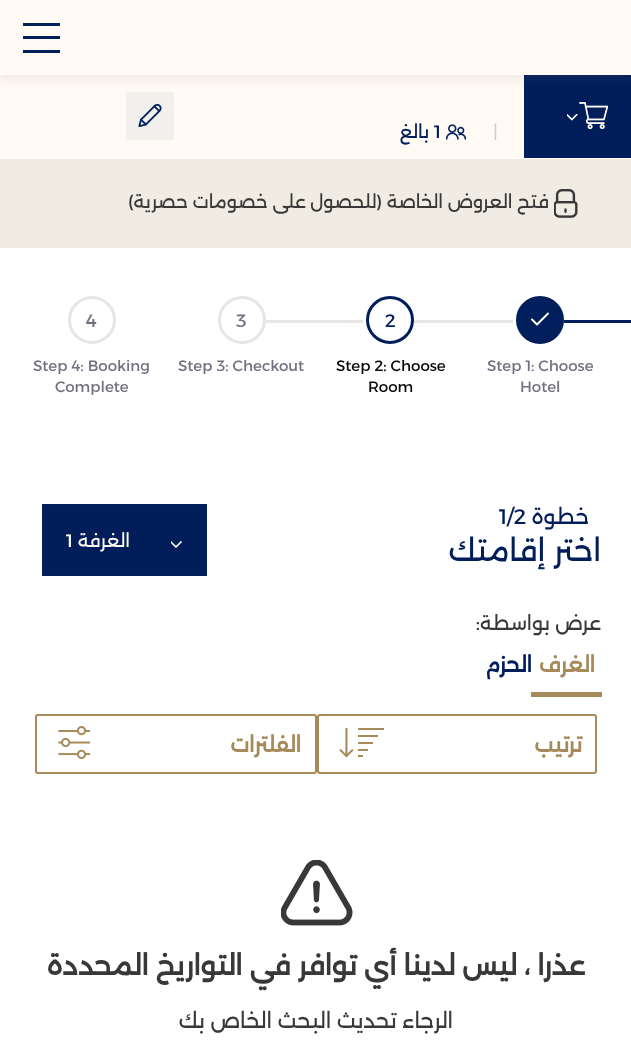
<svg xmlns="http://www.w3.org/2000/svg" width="631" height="1058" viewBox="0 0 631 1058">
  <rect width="100%" height="100%" fill="rgb(255,255,255)"/>
  <rect x="0" y="75" width="524" height="83" fill="rgb(255,251,244)"/>
  <rect x="126" y="92" width="48" height="48" fill="rgb(242,240,236)"/>
  <rect x="524" y="75" width="107" height="83" fill="rgb(1,30,91)"/>
  <rect x="0" y="5" width="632" height="75" fill="rgba(105,105,105,0.11)" filter="blur(4.5px)"/>
  <rect x="0" y="0" width="631" height="75" fill="rgb(255,251,244)"/>
  <rect x="23" y="23" width="37" height="3" fill="rgb(0,32,87)"/>
  <rect x="23" y="36" width="37" height="3" fill="rgb(0,32,87)"/>
  <rect x="23" y="50" width="37" height="3" fill="rgb(0,32,87)"/>
  <image x="579" y="102" width="29" height="27" href="pic1.png"/>
  <image x="567" y="114" width="11" height="7" href="pic2.png"/>
  <image x="138" y="104" width="24" height="24" href="pic3.png"/>
  <text x="493" y="138" font-family="Alexandria" font-size="18" fill="rgb(204,207,213)">|</text>
  <image x="446" y="124" width="21" height="16" href="pic4.png"/>
  <text x="434" y="138" font-family="Alexandria" font-size="18" fill="rgb(1,30,91)">1</text>
  <text x="429" y="138" font-family="Alexandria" font-size="18" direction="rtl" fill="rgb(1,30,91)">بالغ</text>
  <rect x="0" y="159" width="631" height="89" fill="rgb(240,236,228)"/>
  <image x="554" y="189" width="24" height="29" href="pic5.png"/>
  <text x="549" y="208" word-spacing="-0.25" font-family="Alexandria" font-size="18" letter-spacing="0.05" direction="rtl" fill="rgb(56,56,56)">فتح العروض الخاصة (للحصول على خصومات حصرية)</text>
  <rect x="564" y="320" width="67" height="3" fill="rgb(0,31,92)"/>
  <circle cx="540" cy="320" r="22.5" fill="rgb(0,31,92)" stroke="rgb(0,31,92)" stroke-width="3"/>
  <path d="M548 313.5L537 324.5L532 319.5" fill="none" stroke="rgb(255,255,255)" stroke-width="2" stroke-linecap="round" stroke-linejoin="round"/>
  <g font-family="Alexandria" font-size="15" fill="rgb(113,113,130)">
    <text x="487" y="371">Step 1: Choose</text>
    <text x="520" y="392">Hotel</text>
  </g>
  <rect x="414" y="320" width="99" height="3" fill="rgb(230,230,230)"/>
  <circle cx="390" cy="320" r="22.5" fill="none" stroke="rgb(0,31,92)" stroke-width="3"/>
  <text x="385" y="327" font-family="Alexandria" font-size="18" fill="rgb(1,30,91)">2</text>
  <g font-family="Alexandria" font-size="15" fill="rgb(10,10,10)">
    <text x="336" y="371">Step 2: Choose</text>
    <text x="368" y="392">Room</text>
  </g>
  <rect x="266" y="320" width="97" height="3" fill="rgb(230,230,230)"/>
  <circle cx="242" cy="320" r="22.5" fill="none" stroke="rgb(230,230,230)" stroke-width="3"/>
  <text x="236" y="327" font-family="Alexandria" font-size="18" fill="rgb(113,113,130)">3</text>
  <text x="178" y="371" font-family="Alexandria" font-size="15" fill="rgb(113,113,130)">Step 3: Checkout</text>
  <circle cx="92" cy="320" r="22.5" fill="none" stroke="rgb(230,230,230)" stroke-width="3"/>
  <text x="86" y="327" font-family="Alexandria" font-size="18" fill="rgb(113,113,130)">4</text>
  <g font-family="Alexandria" font-size="15" fill="rgb(113,113,130)">
    <text x="33" y="371">Step 4: Booking</text>
    <text x="55" y="392">Complete</text>
  </g>
  <text x="589" y="524" font-family="Alexandria" font-size="21" direction="rtl" fill="rgb(1,30,91)">خطوة</text>
  <text x="499" y="524" font-family="Alexandria" font-size="21" fill="rgb(1,30,91)">1/2</text>
  <text x="601" y="561" font-family="Alexandria" font-size="30" direction="rtl" fill="rgb(1,30,91)">اختر إقامتك</text>
  <rect x="43" y="505" width="163" height="70" fill="rgb(1,30,91)" stroke="rgb(0,31,91)" stroke-width="2"/>
  <image x="171" y="541" width="11" height="7" href="pic6.png"/>
  <text x="130" y="547" font-family="Alexandria" font-size="18" direction="rtl" fill="rgb(255,251,244)">الغرفة</text>
  <text x="66" y="547" font-family="Alexandria" font-size="18" fill="rgb(255,251,244)">1</text>
  <text x="601" y="630" font-family="Alexandria" font-size="19.5" direction="rtl" fill="rgb(56,56,56)">عرض بواسطة:</text>
  <rect x="531" y="692" width="71" height="5" fill="rgb(166,138,89)"/>
  <text x="595" y="672" font-family="Alexandria" font-size="21" font-weight="bold" letter-spacing="0.25" direction="rtl" fill="rgb(166,138,89)">الغرف</text>
  <text x="532" y="672" font-family="Alexandria" font-size="21" font-weight="bold" letter-spacing="0.25" direction="rtl" fill="rgb(1,30,91)">الحزم</text>
  <rect x="318" y="715" width="278" height="58" rx="2" fill="none" stroke="rgb(166,138,89)" stroke-width="2"/>
  <text x="582" y="752" font-family="Alexandria" font-size="21" font-weight="bold" direction="rtl" fill="rgb(166,138,89)">ترتيب</text>
  <image x="339" y="728" width="45" height="30" href="pic7.png"/>
  <rect x="36" y="715" width="280" height="58" rx="2" fill="none" stroke="rgb(166,138,89)" stroke-width="2"/>
  <text x="301" y="752" font-family="Alexandria" font-size="21" font-weight="bold" direction="rtl" fill="rgb(166,138,89)">الفلترات</text>
  <image x="58" y="726" width="33" height="33" href="pic8.png"/>
  <image x="281" y="860" width="72" height="66" href="pic9.png"/>
  <text x="585" y="975" font-family="Alexandria" font-size="27" font-weight="bold" direction="rtl" fill="rgb(56,56,56)">عذرا ، ليس لدينا أي توافر في التواريخ المحددة</text>
  <text x="453" y="1028" font-family="Alexandria" font-size="21" direction="rtl" fill="rgb(56,56,56)">الرجاء تحديث البحث الخاص بك</text>
</svg>
